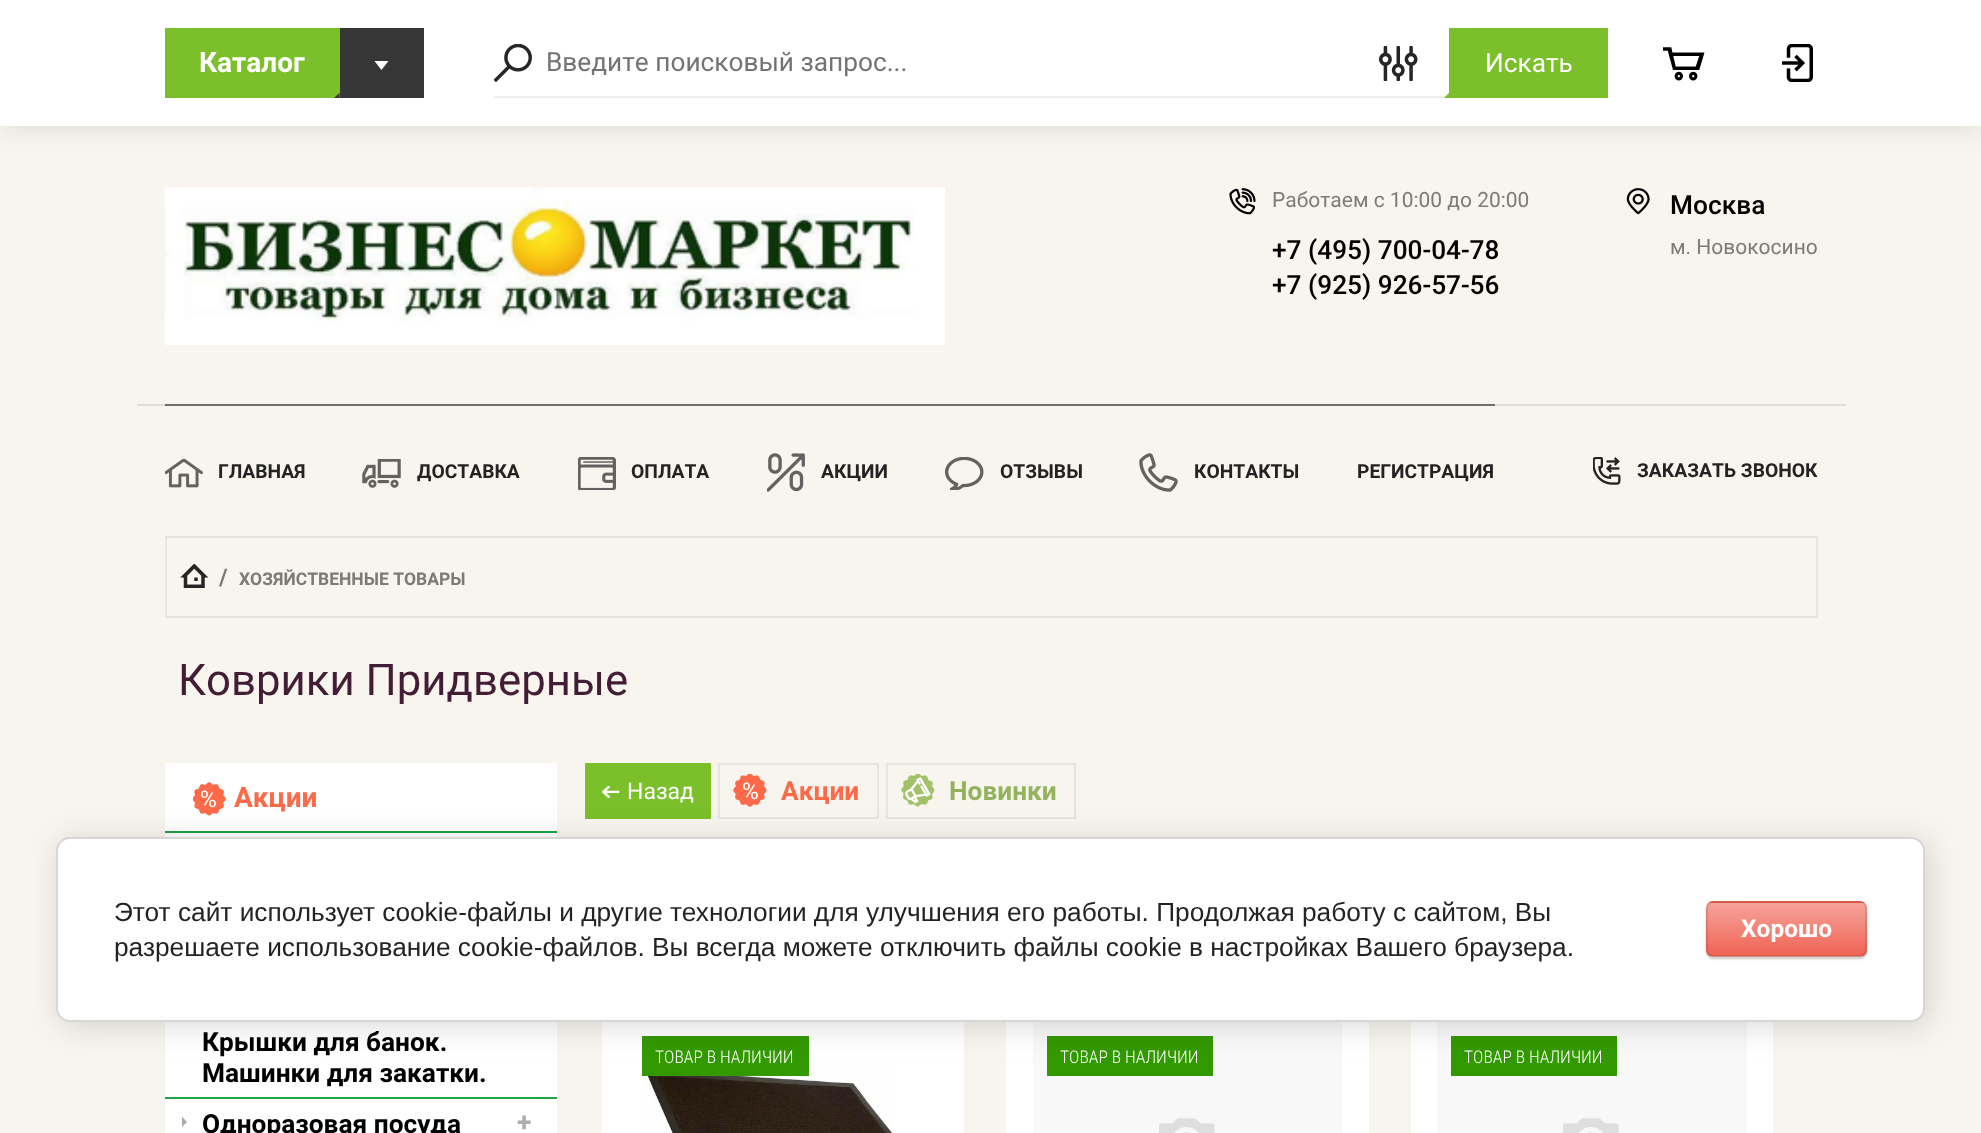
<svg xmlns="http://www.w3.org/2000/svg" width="1981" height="1133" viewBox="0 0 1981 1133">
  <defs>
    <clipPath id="clip1"><rect x="1706" y="901" width="161" height="56" rx="7"/></clipPath>
    <linearGradient id="g1" gradientUnits="userSpaceOnUse" x1="1787" y1="851" x2="1787" y2="903"><stop offset="0" stop-color="rgb(246,163,154)"/><stop offset="1" stop-color="rgb(240,99,84)"/></linearGradient>
    <linearGradient id="g2" gradientUnits="userSpaceOnUse" x1="1787" y1="903" x2="1787" y2="956"><stop offset="0" stop-color="rgb(246,163,154)"/><stop offset="1" stop-color="rgb(240,99,84)"/></linearGradient>
    <linearGradient id="g3" gradientUnits="userSpaceOnUse" x1="1787" y1="956" x2="1787" y2="1008"><stop offset="0" stop-color="rgb(246,163,154)"/><stop offset="1" stop-color="rgb(240,99,84)"/></linearGradient>
  </defs>
  <rect width="100%" height="100%" fill="rgb(248,245,238)"/>
  <rect x="0" y="2" width="1981" height="126" fill="rgba(0,0,0,0.1)" filter="blur(13px)"/>
  <rect x="0" y="0" width="1981" height="126" fill="rgb(255,255,255)"/>
  <rect x="165" y="28" width="175" height="70" fill="rgb(123,191,43)"/>
  <text x="199" y="72" font-family="roboto" font-size="28" font-weight="bold" fill="rgb(255,255,255)">Каталог</text>
  <path d="M339.5 98H334L339.5 93Z" fill="rgb(54,54,54)"/>
  <rect x="340" y="28" width="84" height="70" fill="rgb(54,54,54)"/>
  <path d="M381.5 70L388.5 61H374.5Z" fill="rgb(255,255,255)" fill-rule="evenodd"/>
  <image x="494" y="44" width="38" height="38" href="pic1.png"/>
  <rect x="494" y="96" width="955" height="2" fill="rgb(237,237,237)"/>
  <text x="546" y="71" font-family="roboto" font-size="26.25" fill="rgb(115,115,115)">Введите поисковый запрос...</text>
  <image x="1379" y="46" width="39" height="35" href="pic2.png"/>
  <rect x="1449" y="28" width="159" height="70" fill="rgb(123,191,43)"/>
  <text x="1485" y="72" font-family="roboto" font-size="26.25" fill="rgb(255,255,255)">Искать</text>
  <path d="M1449 98H1444L1449 93Z" fill="rgb(123,191,43)"/>
  <image x="1663" y="47" width="42" height="34" href="pic3.png"/>
  <image x="1782" y="44" width="31" height="38" href="pic4.png"/>
  <rect x="137" y="404" width="1709" height="2" fill="rgb(223,221,214)"/>
  <image x="164" y="187" width="781" height="158" href="pic5.png"/>
  <image x="1229" y="188" width="27" height="27" href="pic6.png"/>
  <text x="1272" y="207" font-family="roboto" font-size="21" fill="rgb(124,123,119)">Работаем с 10:00 до 20:00</text>
  <g font-family="Roboto" font-size="26.25" font-weight="500" fill="rgb(0,0,0)">
    <text>
      <tspan x="1272" y="259">+7 (495) 700-04-78</tspan>
      <tspan x="1272" y="294">+7 (925) 926-57-56</tspan>
    </text>
  </g>
  <image x="1626" y="188" width="24" height="27" href="pic7.png"/>
  <text x="1670" y="214" font-family="Roboto" font-size="26.25" font-weight="500" fill="rgb(0,0,0)">Москва</text>
  <text x="1670" y="254" font-family="roboto" font-size="21" fill="rgb(124,123,119)">м. Новокосино</text>
  <rect x="165" y="404" width="1330" height="2" fill="rgb(112,111,107)"/>
  <image x="165" y="459" width="38" height="29" href="pic8.png"/>
  <text x="218" y="478" font-family="roboto" font-size="19.25" font-weight="bold" fill="rgb(35,35,35)">ГЛАВНАЯ</text>
  <image x="362" y="459" width="39" height="29" href="pic9.png"/>
  <text x="417" y="478" font-family="roboto" font-size="19.25" font-weight="bold" fill="rgb(35,35,35)">ДОСТАВКА</text>
  <image x="578" y="457" width="38" height="33" href="pic10.png"/>
  <text x="631" y="478" font-family="roboto" font-size="19.25" font-weight="bold" fill="rgb(35,35,35)">ОПЛАТА</text>
  <image x="767" y="453" width="38" height="39" href="pic11.png"/>
  <text x="821" y="478" font-family="roboto" font-size="19.25" font-weight="bold" fill="rgb(35,35,35)">АКЦИИ</text>
  <image x="945" y="457" width="39" height="33" href="pic12.png"/>
  <text x="1000" y="478" font-family="roboto" font-size="19.25" font-weight="bold" fill="rgb(35,35,35)">ОТЗЫВЫ</text>
  <image x="1139" y="453" width="39" height="39" href="pic13.png"/>
  <g font-family="roboto" font-size="19.25" font-weight="bold" fill="rgb(35,35,35)">
    <text x="1194" y="478">КОНТАКТЫ</text>
    <text x="1357" y="478">РЕГИСТРАЦИЯ</text>
  </g>
  <image x="1593" y="457" width="28" height="28" href="pic14.png"/>
  <text x="1637" y="477" font-family="roboto" font-size="19.25" font-weight="bold" fill="rgb(35,35,35)">ЗАКАЗАТЬ ЗВОНОК</text>
  <rect x="166" y="537" width="1651" height="80" fill="none" stroke="rgb(231,228,221)" stroke-width="2"/>
  <image x="180" y="564" width="28" height="24" href="pic15.png"/>
  <text x="219" y="585" font-family="roboto" font-size="23" font-weight="bold" fill="rgb(124,123,119)">/</text>
  <text x="239" y="585" font-family="roboto" font-size="17.5" font-weight="bold" fill="rgb(124,123,119)">ХОЗЯЙСТВЕННЫЕ ТОВАРЫ</text>
  <text x="178" y="695" font-family="roboto" font-size="43.75" fill="rgb(67,29,53)">Коврики Придверные</text>
  <rect x="165" y="763" width="392" height="68" fill="rgb(255,255,255)"/>
  <rect x="165" y="831" width="392" height="2" fill="rgb(31,163,68)"/>
  <image x="193" y="782" width="33" height="34" href="pic16.png"/>
  <text x="200" y="807" font-family="roboto" font-size="23" fill="rgb(255,255,255)">%</text>
  <text x="234" y="807" font-family="roboto" font-size="28" font-weight="bold" fill="rgb(252,106,74)">Акции</text>
  <rect x="165" y="833" width="392" height="4" fill="rgb(255,255,255)"/>
  <rect x="165" y="1022" width="392" height="111" fill="rgb(255,255,255)"/>
  <rect x="165" y="1097" width="392" height="2" fill="rgb(31,163,68)"/>
  <g font-family="roboto" font-size="26.25" font-weight="bold" fill="rgb(0,0,0)">
    <text>
      <tspan x="202" y="1051">Крышки для банок.</tspan>
      <tspan x="202" y="1082">Машинки для закатки.</tspan>
    </text>
  </g>
  <path d="M182 1116.5L187 1122L182 1127Z" fill="rgb(173,173,173)"/>
  <text x="202" y="1133" font-family="roboto" font-size="26.25" font-weight="bold" fill="rgb(0,0,0)">Одноразовая посуда</text>
  <text x="517" y="1131" font-family="roboto" font-size="26.25" font-weight="bold" fill="rgb(173,173,173)">+</text>
  <rect x="585" y="763" width="126" height="56" fill="rgb(123,191,43)"/>
  <image x="602" y="786" width="18" height="12" href="pic17.png"/>
  <text x="627" y="799" font-family="roboto" font-size="23" fill="rgb(255,255,255)">Назад</text>
  <rect x="719" y="764" width="159" height="54" fill="none" stroke="rgb(231,228,221)" stroke-width="2"/>
  <image x="733" y="774" width="34" height="33" href="pic18.png"/>
  <text x="742" y="799" font-family="roboto" font-size="23" fill="rgb(255,255,255)">%</text>
  <text x="781" y="800" font-family="roboto" font-size="26.25" font-weight="bold" fill="rgb(252,106,74)">Акции</text>
  <rect x="887" y="764" width="188" height="54" fill="none" stroke="rgb(231,228,221)" stroke-width="2"/>
  <image x="901" y="774" width="34" height="33" href="pic19.png"/>
  <text x="949" y="800" font-family="roboto" font-size="26.25" font-weight="bold" fill="rgb(148,179,94)">Новинки</text>
  <rect x="602" y="1022" width="362" height="111" fill="rgb(255,255,255)"/>
  <image x="643" y="1068" width="251" height="65" href="pic20.png"/>
  <rect x="642" y="1036" width="167" height="40" fill="rgb(51,153,0)"/>
  <text x="655" y="1063" font-family="Roboto Condensed" font-size="17.5" font-weight="300" fill="rgb(255,255,255)">ТОВАР В НАЛИЧИИ</text>
  <rect x="1006" y="1022" width="363" height="111" fill="rgb(255,255,255)"/>
  <rect x="1033" y="1022" width="309" height="111" fill="rgb(248,248,248)"/>
  <image x="1159" y="1118" width="56" height="15" href="pic21.png"/>
  <rect x="1047" y="1036" width="166" height="40" fill="rgb(51,153,0)"/>
  <text x="1060" y="1063" font-family="Roboto Condensed" font-size="17.5" font-weight="300" fill="rgb(255,255,255)">ТОВАР В НАЛИЧИИ</text>
  <rect x="1411" y="1022" width="362" height="111" fill="rgb(255,255,255)"/>
  <rect x="1437" y="1022" width="310" height="111" fill="rgb(248,248,248)"/>
  <image x="1563" y="1118" width="56" height="15" href="pic22.png"/>
  <rect x="1451" y="1036" width="166" height="40" fill="rgb(51,153,0)"/>
  <text x="1464" y="1063" font-family="Roboto Condensed" font-size="17.5" font-weight="300" fill="rgb(255,255,255)">ТОВАР В НАЛИЧИИ</text>
  <rect x="60" y="840" width="1869" height="186" rx="14" fill="rgba(0,0,0,0.14)" filter="blur(16px)"/>
  <rect x="57" y="838" width="1867" height="183" rx="13" fill="rgb(255,255,255)" stroke="rgb(214,214,214)" stroke-width="2"/>
  <g font-family="Liberation Sans" font-size="26.25" fill="rgb(35,35,35)">
    <text>
      <tspan x="114" y="921">Этот сайт использует cookie-файлы и другие технологии для улучшения его работы. Продолжая работу с сайтом, Вы</tspan>
      <tspan x="114" y="956">разрешаете использование cookie-файлов. Вы всегда можете отключить файлы cookie в настройках Вашего браузера.</tspan>
    </text>
  </g>
  <rect x="1706" y="903" width="161" height="56" rx="7" fill="rgba(0,0,0,0.2)" filter="blur(1px)"/>
  <g clip-path="url(#clip1)">
    <rect x="1706" y="901" width="161" height="2" fill="url(#g1)"/>
    <rect x="1706" y="903" width="161" height="53" fill="url(#g2)"/>
    <rect x="1706" y="956" width="161" height="1" fill="url(#g3)"/>
  </g>
  <rect x="1707" y="902" width="159" height="54" rx="6" fill="none" stroke="rgba(0,0,0,0.1)" stroke-width="2"/>
  <text x="1741" y="937" font-family="roboto" font-size="24.5" font-weight="bold" fill="rgb(255,255,255)">Хорошо</text>
</svg>
